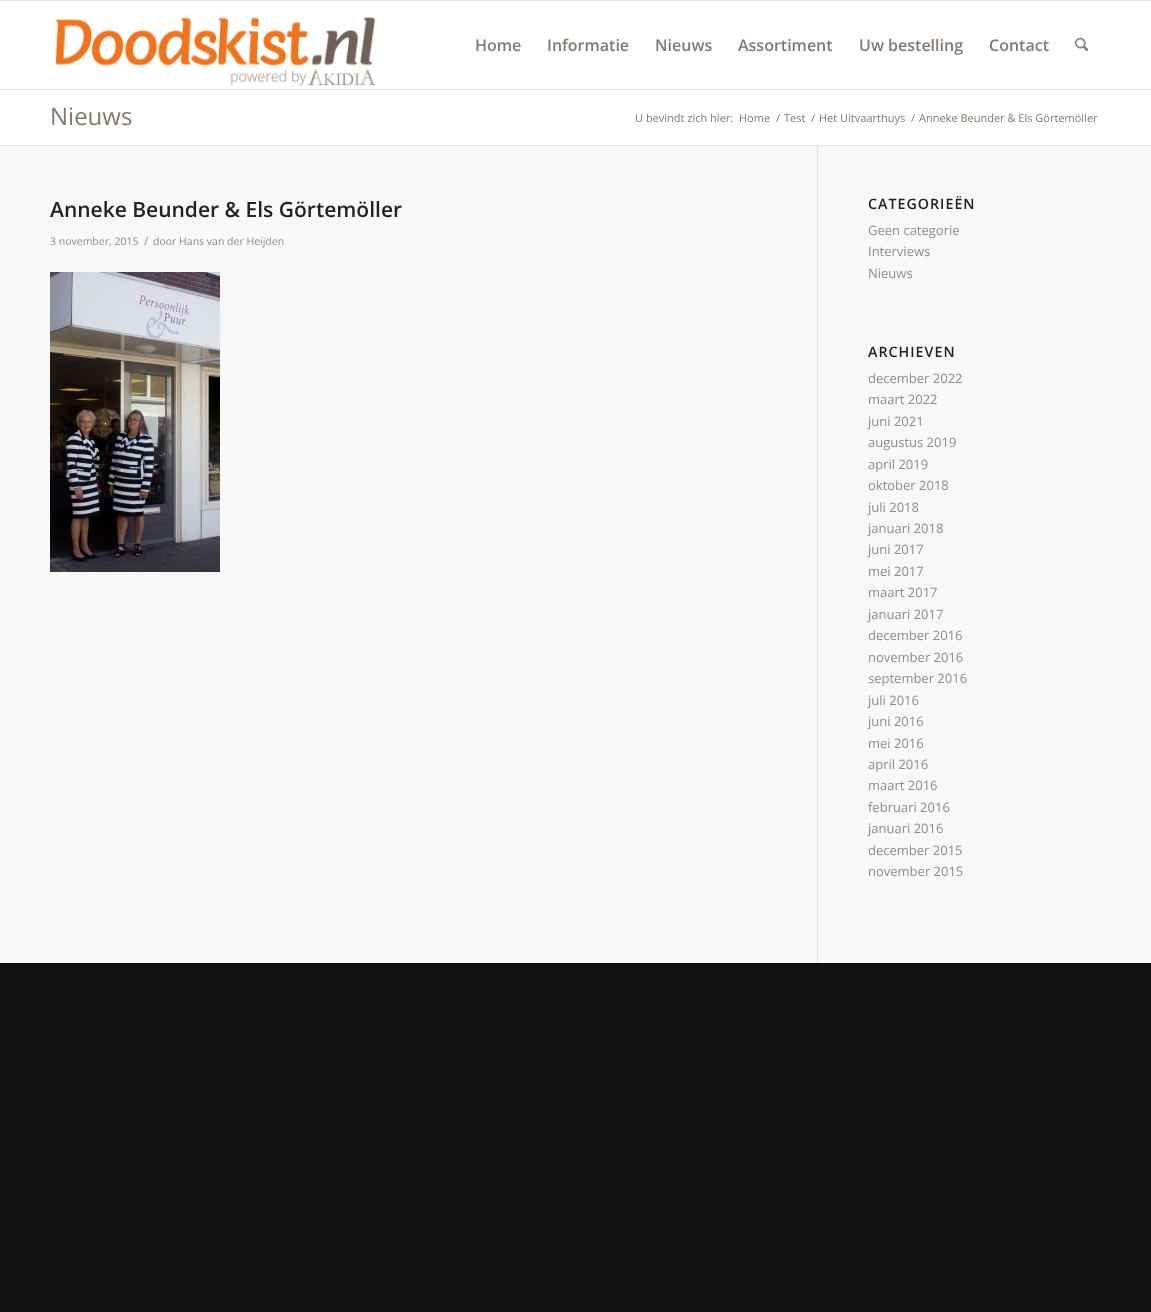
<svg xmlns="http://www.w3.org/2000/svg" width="1151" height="1312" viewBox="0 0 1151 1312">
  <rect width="100%" height="100%" fill="rgb(17,17,17)"/>
  <rect x="0" y="0" width="1151" height="1" fill="rgb(225,225,225)"/>
  <rect x="0" y="89" width="1151" height="1" fill="rgb(225,225,225)"/>
  <rect x="0" y="1" width="1151" height="87" fill="rgb(255,255,255)"/>
  <image x="55" y="17" width="321" height="69" href="pic1.png"/>
  <g font-family="Open Sans" font-size="16" font-weight="600" fill="rgb(131,120,112)">
    <text x="475" y="51">Home</text>
    <text x="547" y="51">Informatie</text>
    <text x="655" y="51">Nieuws</text>
    <text x="738" y="51">Assortiment</text>
    <text x="859" y="51">Uw bestelling</text>
    <text x="989" y="51">Contact</text>
  </g>
  <image x="1075" y="37" width="13" height="15" href="pic2.png"/>
  <rect x="0" y="90" width="1151" height="55" fill="rgb(255,255,255)"/>
  <rect x="0" y="88" width="1151" height="1" fill="rgb(254,254,254)"/>
  <text x="50" y="125" font-family="Open Sans" font-size="24" fill="rgb(131,120,112)">Nieuws</text>
  <g font-family="Open Sans" font-size="11" fill="rgb(131,120,112)">
    <text x="635" y="122">U bevindt zich hier:</text>
    <text x="739" y="122">Home</text>
    <text x="776" y="122">/</text>
    <text x="784" y="122">Test</text>
    <text x="811" y="122">/</text>
    <text x="819" y="122">Het Uitvaarthuys</text>
    <text x="911" y="122">/</text>
    <text x="919" y="122">Anneke Beunder &amp; Els Görtemöller</text>
  </g>
  <rect x="0" y="146" width="1151" height="817" fill="rgb(248,248,248)"/>
  <rect x="0" y="145" width="1151" height="1" fill="rgb(225,225,225)"/>
  <text x="50" y="217" font-family="Open Sans" font-size="21" font-weight="600" fill="rgb(34,34,34)">Anneke Beunder &amp; Els Görtemöller</text>
  <text x="50" y="245" font-family="Open Sans" font-size="10.5" fill="rgb(141,141,141)">3 november, 2015</text>
  <text x="144" y="245" font-family="Open Sans" font-size="12" fill="rgb(141,141,141)">/</text>
  <text x="153" y="245" font-family="Open Sans" font-size="10.5" fill="rgb(141,141,141)">door Hans van der Heijden</text>
  <image x="50" y="272" width="170" height="300" href="pic3.png"/>
  <rect x="817" y="146" width="1" height="817" fill="rgb(225,225,225)"/>
  <text x="868" y="209" font-family="Open Sans" font-size="14.25" font-weight="600" letter-spacing="1" fill="rgb(34,34,34)">CATEGORIEËN</text>
  <g font-family="Open Sans" font-size="13" fill="rgb(141,141,141)">
    <text>
      <tspan x="868" y="235">Geen categorie</tspan>
      <tspan x="868" y="256">Interviews</tspan>
      <tspan x="868" y="278">Nieuws</tspan>
    </text>
  </g>
  <text x="868" y="357" font-family="Open Sans" font-size="14.25" font-weight="600" letter-spacing="1" fill="rgb(34,34,34)">ARCHIEVEN</text>
  <g font-family="Open Sans" font-size="13" fill="rgb(141,141,141)">
    <text>
      <tspan x="868" y="383">december 2022</tspan>
      <tspan x="868" y="404">maart 2022</tspan>
      <tspan x="868" y="426">juni 2021</tspan>
      <tspan x="868" y="447">augustus 2019</tspan>
      <tspan x="868" y="469">april 2019</tspan>
      <tspan x="868" y="490">oktober 2018</tspan>
      <tspan x="868" y="512">juli 2018</tspan>
      <tspan x="868" y="533">januari 2018</tspan>
      <tspan x="868" y="554">juni 2017</tspan>
      <tspan x="868" y="576">mei 2017</tspan>
      <tspan x="868" y="597">maart 2017</tspan>
      <tspan x="868" y="619">januari 2017</tspan>
      <tspan x="868" y="640">december 2016</tspan>
      <tspan x="868" y="662">november 2016</tspan>
      <tspan x="868" y="683">september 2016</tspan>
      <tspan x="868" y="705">juli 2016</tspan>
      <tspan x="868" y="726">juni 2016</tspan>
      <tspan x="868" y="748">mei 2016</tspan>
      <tspan x="868" y="769">april 2016</tspan>
      <tspan x="868" y="790">maart 2016</tspan>
      <tspan x="868" y="812">februari 2016</tspan>
      <tspan x="868" y="833">januari 2016</tspan>
      <tspan x="868" y="855">december 2015</tspan>
      <tspan x="868" y="876">november 2015</tspan>
    </text>
  </g>
</svg>
